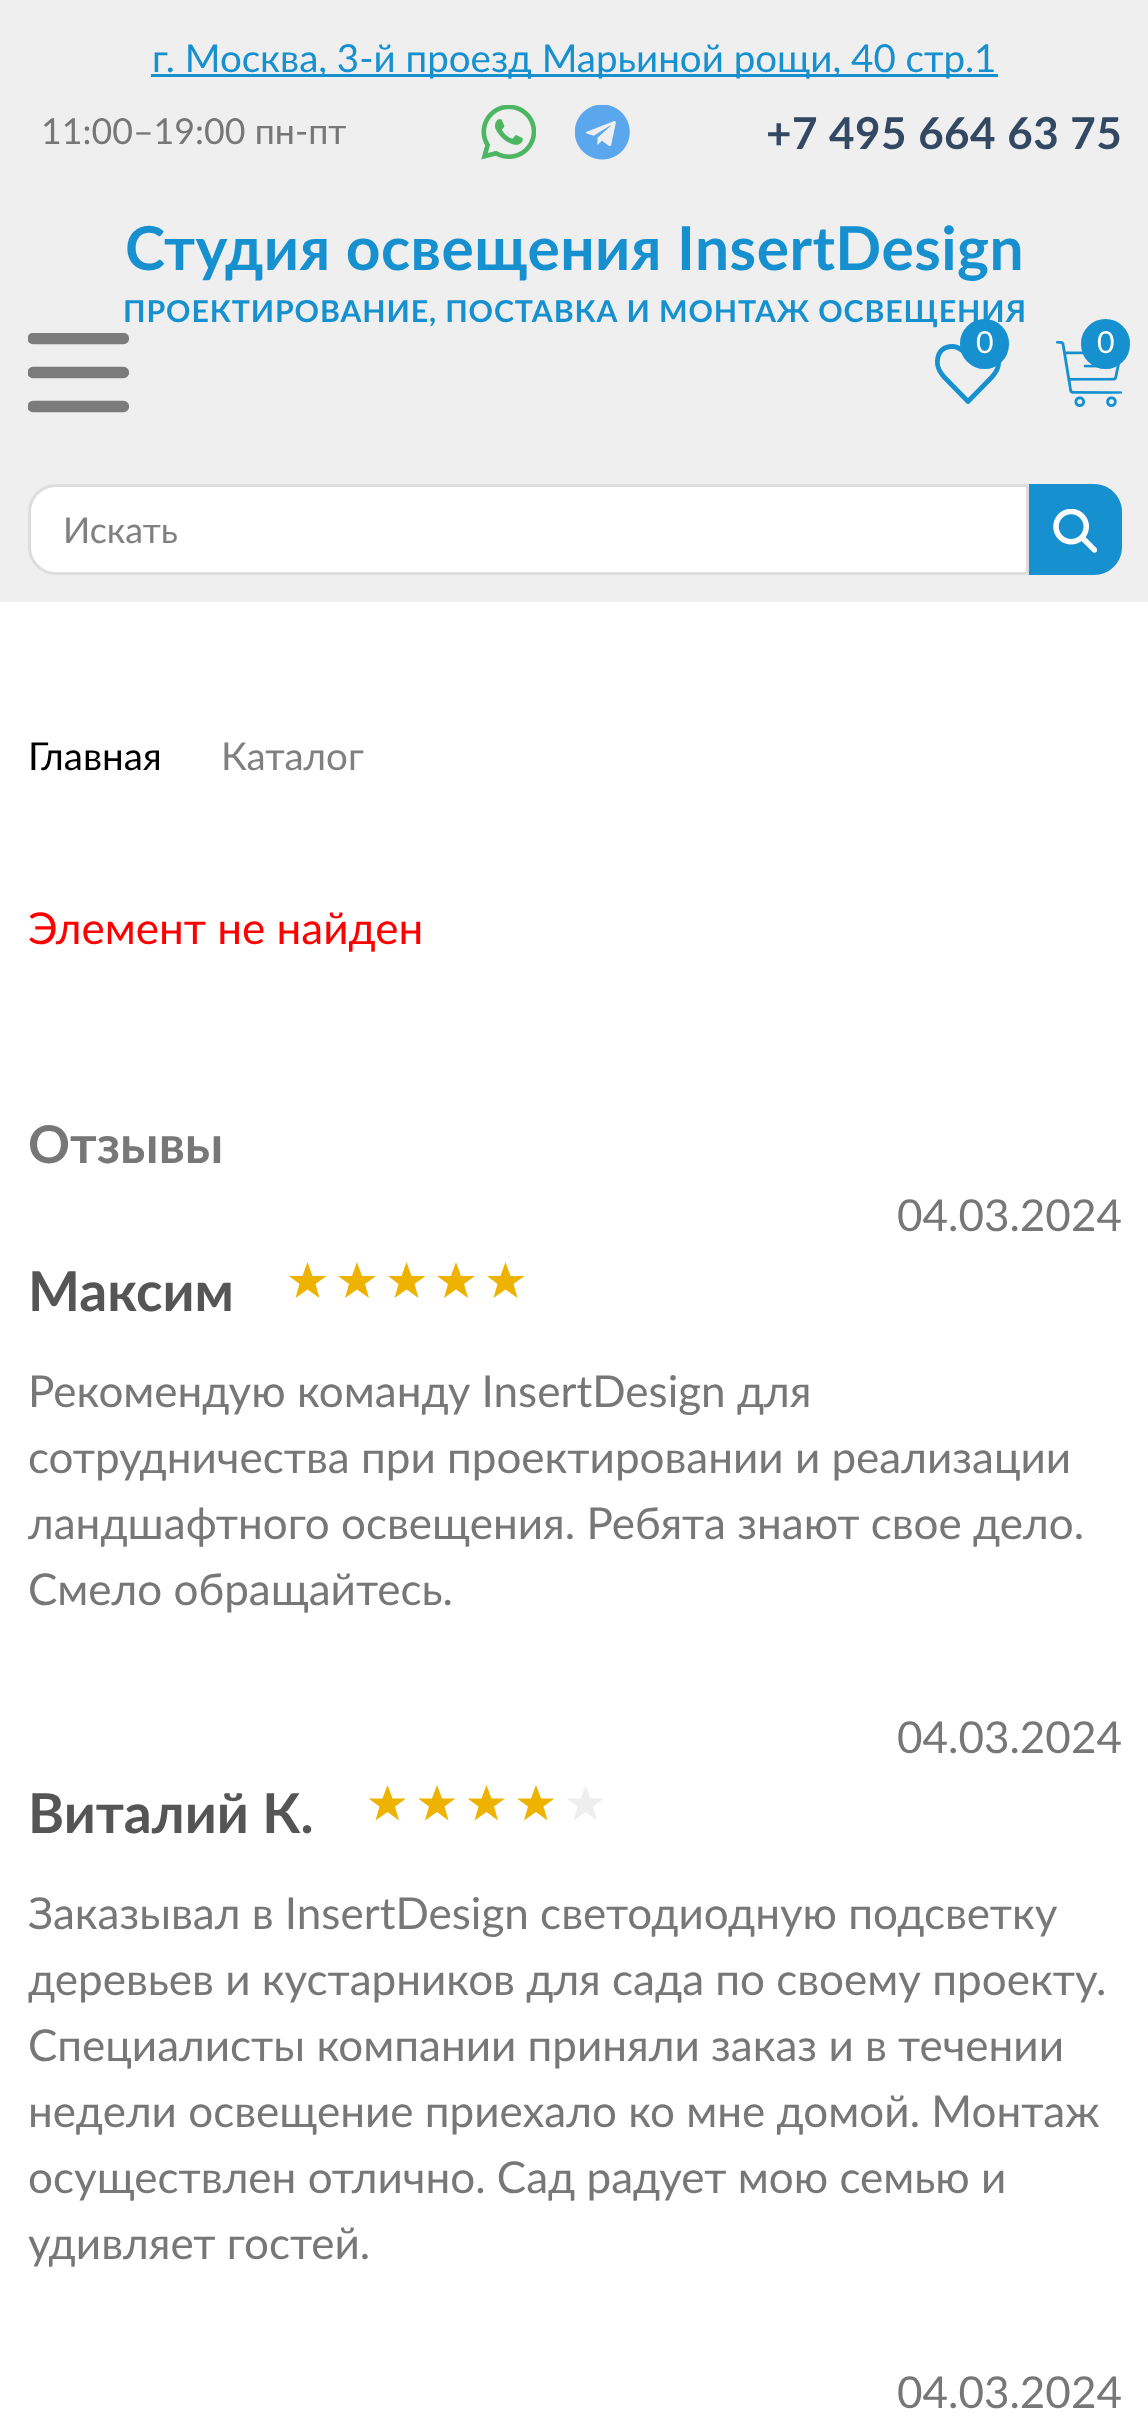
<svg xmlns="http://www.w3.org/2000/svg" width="1148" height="2423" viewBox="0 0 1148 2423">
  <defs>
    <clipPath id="clip1"><rect x="28" y="333" width="101" height="80"/></clipPath>
  </defs>
  <rect width="100%" height="100%" fill="rgb(255,255,255)"/>
  <rect x="0" y="0" width="1148" height="602" fill="rgb(239,239,239)"/>
  <rect x="151" y="74" width="847" height="3" fill="rgb(22,144,207)"/>
  <text x="152" y="72" font-family="Lato" font-size="38.5" fill="rgb(22,144,207)">г. Москва, 3-й проезд Марьиной рощи, 40 стр.1</text>
  <text x="41" y="144" font-family="Lato" font-size="35.75" fill="rgb(119,119,119)">11:00–19:00 пн-пт</text>
  <image x="481" y="105" width="55" height="55" href="pic1.png"/>
  <image x="575" y="105" width="55" height="55" href="pic2.png"/>
  <text x="766" y="149" font-family="Lato" font-size="44" font-weight="bold" letter-spacing="0.45" fill="rgb(51,72,98)">+7 495 664 63 75</text>
  <text x="125" y="270" font-family="Lato" font-size="60.5" font-weight="bold" letter-spacing="0.45" fill="rgb(22,144,207)">Студия освещения InsertDesign</text>
  <text x="123" y="322" font-family="Lato" font-size="30.25" font-weight="bold" letter-spacing="0.9" fill="rgb(22,144,207)">ПРОЕКТИРОВАНИЕ, ПОСТАВКА И МОНТАЖ ОСВЕЩЕНИЯ</text>
  <g clip-path="url(#clip1)">
    <path d="M33 338.5H123.5M33 372.5H123.5M33 406.5H123.5" fill="none" stroke="rgb(123,123,123)" stroke-width="11.3" stroke-linecap="round" stroke-linejoin="round"/>
  </g>
  <image x="935" y="344" width="66" height="60" href="pic3.png"/>
  <rect x="960" y="319" width="49" height="50" rx="24.5" fill="rgb(22,144,207)"/>
  <text x="976" y="353" font-family="Lato" font-size="30.25" fill="rgb(255,255,255)">0</text>
  <image x="1056" y="341" width="66" height="66" href="pic4.png"/>
  <rect x="1081" y="319" width="49" height="50" rx="24.5" fill="rgb(22,144,207)"/>
  <text x="1097" y="353" font-family="Lato" font-size="30.25" fill="rgb(255,255,255)">0</text>
  <path d="M56 485.5H1027.5V573.5H56C41.5 573.5 29.5 561.5 29.5 547V512C29.5 497.5 41.5 485.5 56 485.5Z" fill="rgb(255,255,255)" stroke="rgb(221,221,221)" stroke-width="3"/>
  <text x="63" y="543" font-family="Lato" font-size="35.75" fill="rgb(128,128,128)">Искать</text>
  <path d="M1029 484H1094C1109.5 484 1122 496.5 1122 512V547C1122 562.5 1109.5 575 1094 575H1029Z" fill="rgb(22,144,207)"/>
  <image x="1053" y="509" width="44" height="44" href="pic5.png"/>
  <text x="28" y="770" font-family="Lato" font-size="38.5" fill="rgb(0,0,0)">Главная</text>
  <text x="221" y="770" font-family="Lato" font-size="38.5" fill="rgb(128,128,128)">Каталог</text>
  <text x="28" y="944" font-family="Lato" font-size="44" fill="rgb(255,0,0)">Элемент не найден</text>
  <text x="28" y="1163" font-family="Lato" font-size="52" font-weight="bold" fill="rgb(119,119,119)">Отзывы</text>
  <text x="897" y="1231" font-family="Lato" font-size="44" fill="rgb(119,119,119)">04.03.2024</text>
  <text x="28" y="1311" font-family="Lato" font-size="55" font-weight="bold" fill="rgb(85,85,85)">Максим</text>
  <path d="M307.5 1262L312.5 1276H326.5L315.5 1284L319.5 1298L307.5 1289.5L295.5 1298L299.5 1284L289 1276H302.5Z" fill="rgb(238,179,1)"/>
  <path d="M357 1262L362 1276H376L365 1284L369 1298L357 1289.5L345 1298L349 1284L338 1276H352Z" fill="rgb(238,179,1)"/>
  <path d="M406.5 1262L411.5 1276H425.5L414.5 1284L418.5 1298L406.5 1289.5L394.5 1298L398.5 1284L388 1276H401.5Z" fill="rgb(238,179,1)"/>
  <path d="M456 1262L461 1276H475L464 1284L468 1298L456 1289.5L444 1298L448 1284L437 1276H451Z" fill="rgb(238,179,1)"/>
  <path d="M505.5 1262L510.5 1276H524.5L513.5 1284L517.5 1298L505.5 1289.5L493.5 1298L497.5 1284L487 1276H500.5Z" fill="rgb(238,179,1)"/>
  <g font-family="Lato" font-size="44" fill="rgb(119,119,119)">
    <text>
      <tspan x="28" y="1407">Рекомендую команду InsertDesign для</tspan>
      <tspan x="28" y="1473">сотрудничества при проектировании и реализации</tspan>
      <tspan x="28" y="1539">ландшафтного освещения. Ребята знают свое дело.</tspan>
      <tspan x="28" y="1605">Смело обращайтесь.</tspan>
    </text>
    <text x="897" y="1753">04.03.2024</text>
  </g>
  <text x="28" y="1833" font-family="Lato" font-size="55" font-weight="bold" fill="rgb(85,85,85)">Виталий К.</text>
  <path d="M387.5 1785L392.5 1798.5H406L395 1806.5L399 1820.5L387.5 1812L375.5 1820.5L379.5 1806.5L368.5 1798.5H382.5Z" fill="rgb(238,179,1)"/>
  <path d="M437 1785L442 1798.5H455.5L444.5 1806.5L448.5 1820.5L437 1812L425 1820.5L429 1806.5L418 1798.5H432Z" fill="rgb(238,179,1)"/>
  <path d="M486.5 1785L491.5 1798.5H505L494 1806.5L498 1820.5L486.5 1812L474.5 1820.5L478.5 1806.5L467.5 1798.5H481.5Z" fill="rgb(238,179,1)"/>
  <path d="M536 1785L541 1798.5H554.5L543.5 1806.5L547.5 1820.5L536 1812L524 1820.5L528 1806.5L517 1798.5H531Z" fill="rgb(238,179,1)"/>
  <path d="M585.5 1785L590.5 1798.5H604L593 1806.5L597 1820.5L585.5 1812L573.5 1820.5L577.5 1806.5L566.5 1798.5H580.5Z" fill="rgb(238,238,238)"/>
  <g font-family="Lato" font-size="44" fill="rgb(119,119,119)">
    <text>
      <tspan x="28" y="1929">Заказывал в InsertDesign светодиодную подсветку</tspan>
      <tspan x="28" y="1995">деревьев и кустарников для сада по своему проекту.</tspan>
      <tspan x="28" y="2061">Специалисты компании приняли заказ и в течении</tspan>
      <tspan x="28" y="2127">недели освещение приехало ко мне домой. Монтаж</tspan>
      <tspan x="28" y="2193">осуществлен отлично. Сад радует мою семью и</tspan>
      <tspan x="28" y="2259">удивляет гостей.</tspan>
    </text>
    <text x="897" y="2408">04.03.2024</text>
  </g>
</svg>
